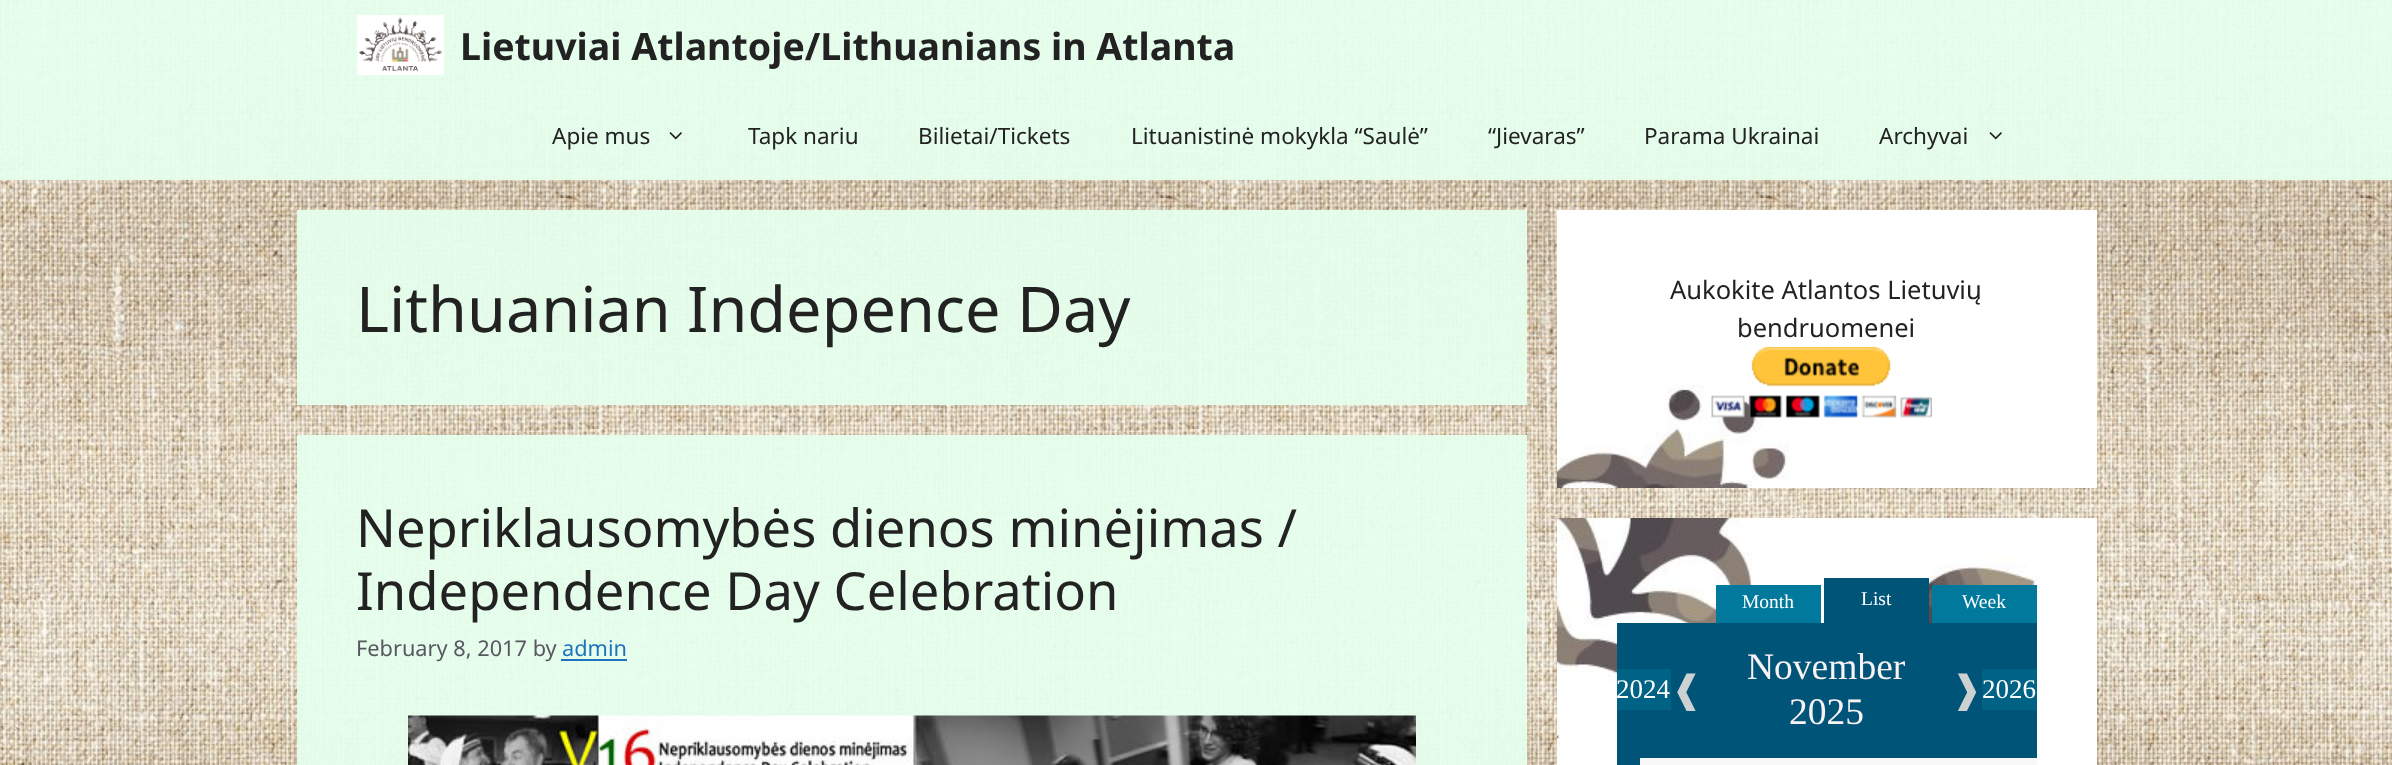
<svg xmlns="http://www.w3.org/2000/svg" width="2392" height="765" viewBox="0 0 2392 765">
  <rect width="100%" height="100%" fill="rgb(255,255,255)"/>
  <image x="0" y="0" width="2392" height="765" href="pic1.png"/>
  <rect x="0" y="0" width="2392" height="180" fill="rgba(229,255,238,0.94)"/>
  <image x="356" y="15" width="88" height="61" href="pic2.png"/>
  <text x="460" y="60" font-family="Noto Sans" font-size="37.5" font-weight="bold" fill="rgb(34,34,34)">Lietuviai Atlantoje/Lithuanians in Atlanta</text>
  <text x="552" y="144" font-family="Noto Sans" font-size="22.5" fill="rgb(34,34,34)">Apie mus</text>
  <image x="669" y="132" width="13" height="8" href="pic3.png"/>
  <g font-family="Noto Sans" font-size="22.5" fill="rgb(34,34,34)">
    <text x="748" y="144">Tapk nariu</text>
    <text x="918" y="144">Bilietai/Tickets</text>
    <text x="1131" y="144">Lituanistinė mokykla “Saulė”</text>
    <text x="1488" y="144">“Jievaras”</text>
    <text x="1644" y="144">Parama Ukrainai</text>
    <text x="1879" y="144">Archyvai</text>
  </g>
  <image x="1989" y="132" width="13" height="8" href="pic4.png"/>
  <rect x="297" y="210" width="1230" height="195" fill="rgba(229,255,238,0.94)"/>
  <text x="356" y="332" font-family="Noto Sans" font-size="63" fill="rgb(34,34,34)">Lithuanian Indepence Day</text>
  <rect x="297" y="435" width="1230" height="330" fill="rgba(229,255,238,0.94)"/>
  <g font-family="Noto Sans" font-size="52.5" fill="rgb(34,34,34)">
    <text>
      <tspan x="356" y="547">Nepriklausomybės dienos minėjimas /</tspan>
      <tspan x="356" y="610">Independence Day Celebration</tspan>
    </text>
  </g>
  <text x="356" y="656" font-family="Noto Sans" font-size="21.75" fill="rgb(87,87,96)">February 8, 2017 by</text>
  <text x="562" y="656" font-family="Noto Sans" font-size="21.75" fill="rgb(30,115,190)">admin</text>
  <rect x="561" y="659" width="66" height="2" fill="rgb(30,115,190)"/>
  <image x="408" y="715" width="1008" height="50" href="pic5.png"/>
  <image x="1557" y="210" width="540" height="278" href="pic6.png"/>
  <g font-family="Noto Sans" font-size="25.5" fill="rgb(34,34,34)">
    <text x="1670" y="299">Aukokite Atlantos Lietuvių</text>
    <text x="1737" y="337">bendruomenei</text>
  </g>
  <image x="1711" y="347" width="221" height="71" href="pic7.png"/>
  <image x="1557" y="518" width="540" height="247" href="pic8.png"/>
  <rect x="1716" y="585" width="105" height="38" fill="rgb(1,121,156)"/>
  <text x="1742" y="608" font-family="Liberation Serif" font-size="19.5" fill="rgb(255,255,255)">Month</text>
  <rect x="1824" y="578" width="105" height="45" fill="rgb(0,84,120)"/>
  <text x="1861" y="605" font-family="Liberation Serif" font-size="19.5" fill="rgb(255,255,255)">List</text>
  <rect x="1932" y="585" width="105" height="38" fill="rgb(1,121,156)"/>
  <text x="1962" y="608" font-family="Liberation Serif" font-size="19.5" fill="rgb(255,255,255)">Week</text>
  <rect x="1640" y="758" width="397" height="7" fill="rgb(248,248,248)"/>
  <rect x="1617" y="623" width="420" height="135" fill="rgb(0,84,120)"/>
  <rect x="1617" y="669" width="54" height="41" fill="rgb(0,99,134)"/>
  <text x="1616" y="698" font-family="Liberation Serif" font-size="27" fill="rgb(255,255,255)">2024</text>
  <text x="1671" y="702" font-family="DejaVu Sans" font-size="37.5" fill="rgb(204,209,210)">❰</text>
  <g font-family="Liberation Serif" font-size="37.5" fill="rgb(249,242,244)">
    <text x="1747" y="679">November</text>
    <text x="1789" y="724">2025</text>
  </g>
  <text x="1951" y="702" font-family="DejaVu Sans" font-size="37.5" fill="rgb(204,209,210)">❱</text>
  <rect x="1982" y="669" width="55" height="41" fill="rgb(0,99,134)"/>
  <text x="1982" y="698" font-family="Liberation Serif" font-size="27" fill="rgb(255,255,255)">2026</text>
  <rect x="1617" y="758" width="23" height="7" fill="rgb(0,84,120)"/>
</svg>
